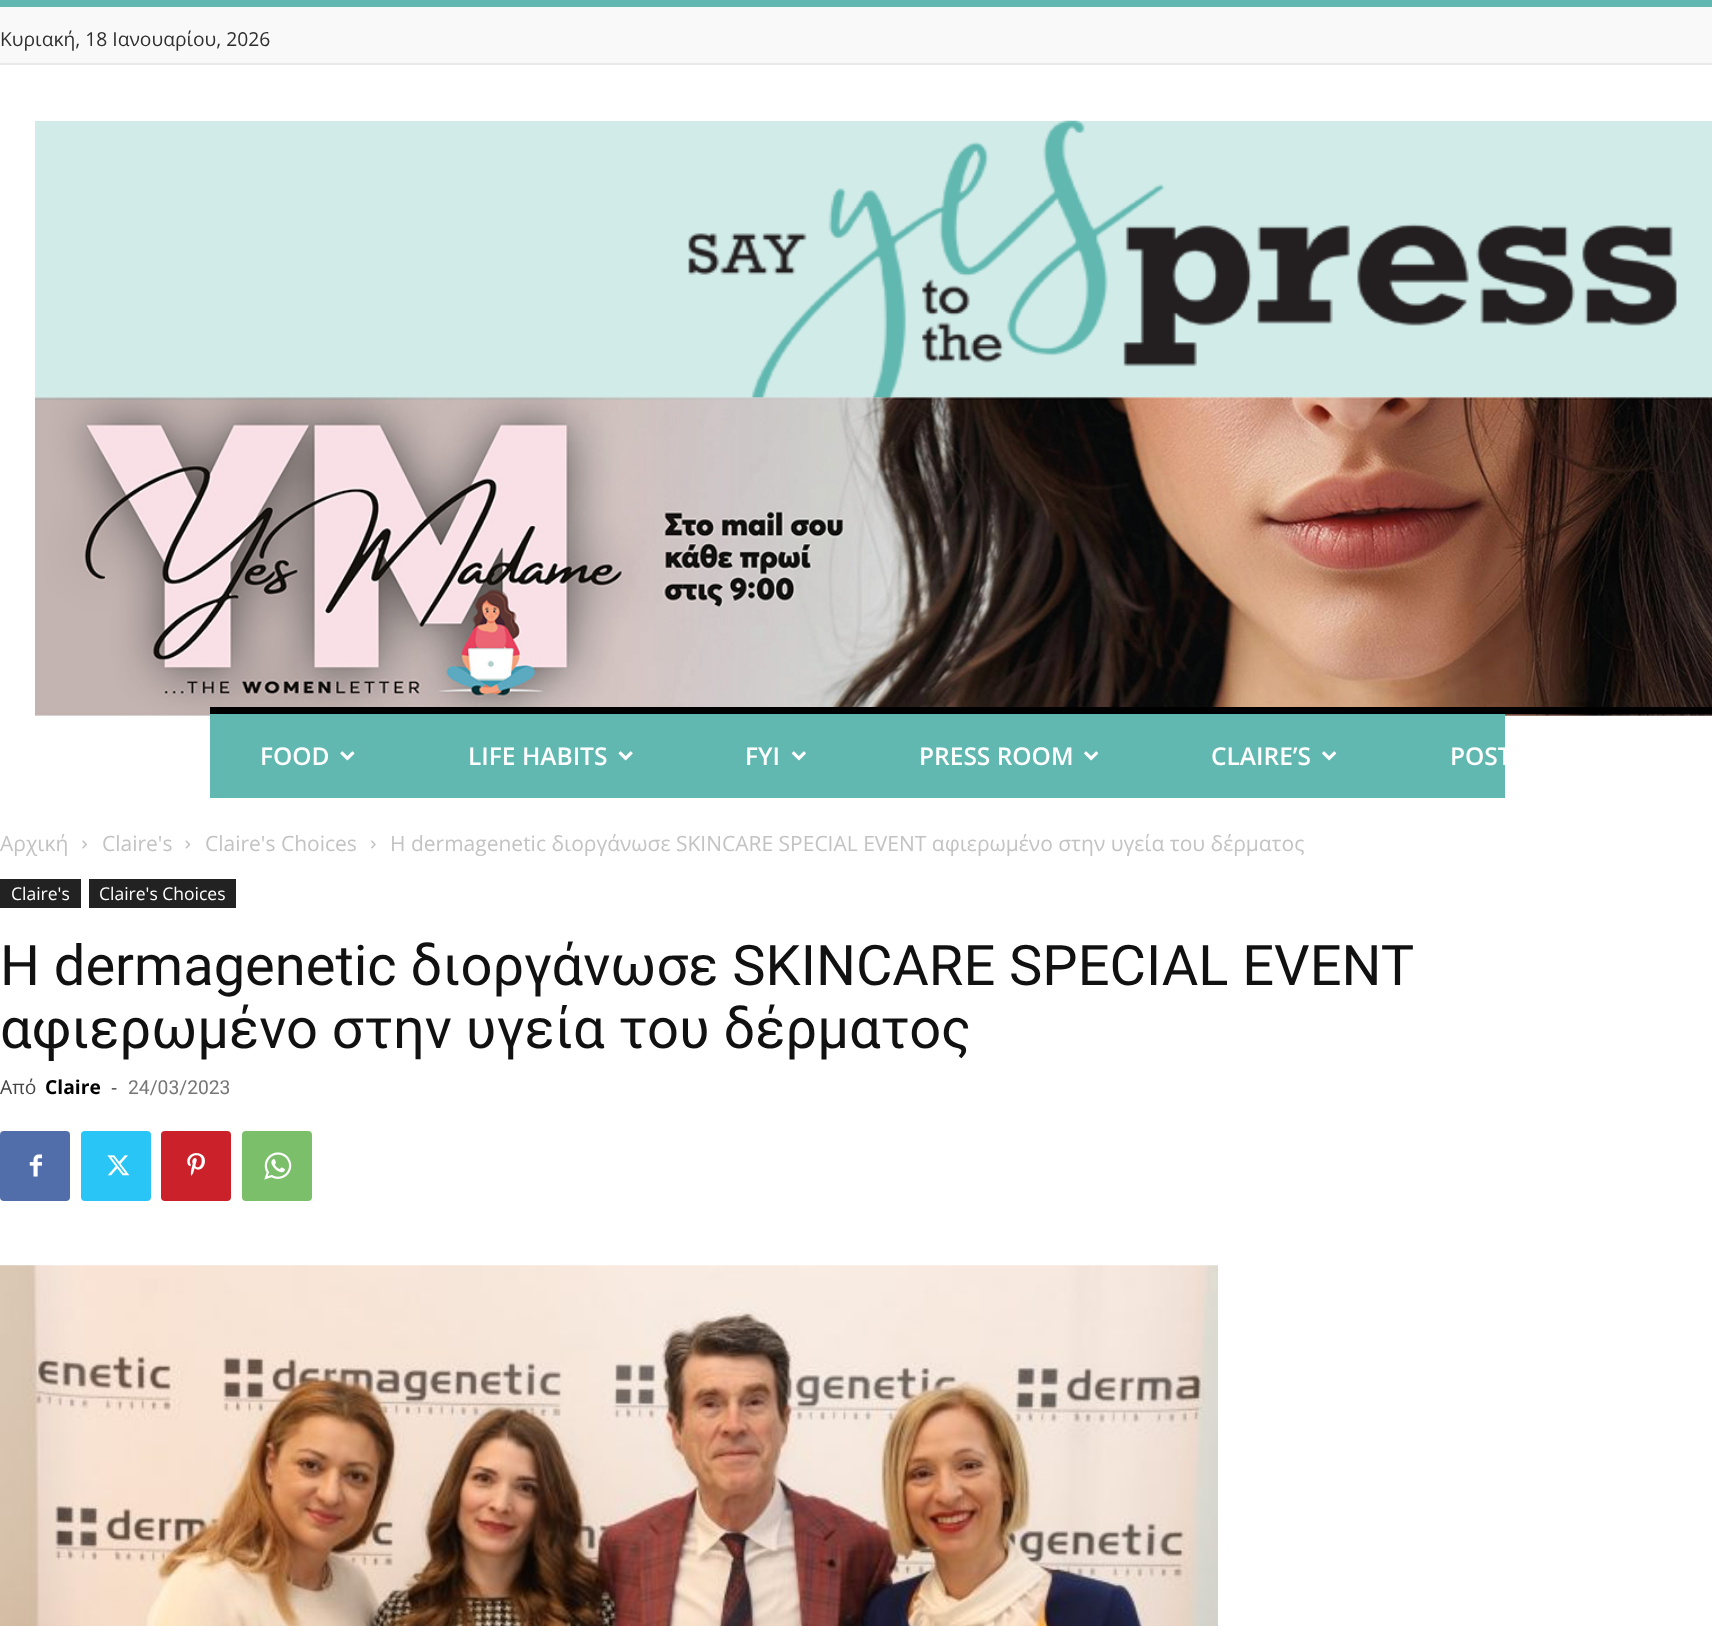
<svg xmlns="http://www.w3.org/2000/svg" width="1712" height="1626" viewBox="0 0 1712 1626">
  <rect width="100%" height="100%" fill="rgb(255,255,255)"/>
  <rect x="0" y="7" width="1712" height="56" fill="rgb(249,249,249)"/>
  <rect x="0" y="0" width="1712" height="7" fill="rgb(97,184,176)"/>
  <rect x="0" y="63" width="1712" height="2" fill="rgb(233,233,233)"/>
  <text x="0" y="46" font-family="Open Sans" font-size="19.25" fill="rgb(47,47,47)">Κυριακή, 18 Ιανουαρίου, 2026</text>
  <rect x="35" y="121" width="1677" height="277" fill="rgb(209,235,232)"/>
  <image x="688" y="120" width="989" height="278" href="pic1.png"/>
  <image x="35" y="397" width="1677" height="319" href="pic2.png"/>
  <rect x="210" y="714" width="1295" height="84" fill="rgb(97,184,176)"/>
  <rect x="210" y="707" width="1502" height="7" fill="rgb(0,0,0)"/>
  <text x="260" y="765" font-family="Open Sans" font-size="24.5" font-weight="600" fill="rgb(255,255,255)">FOOD</text>
  <image x="340" y="751" width="15" height="10" href="pic3.png"/>
  <text x="468" y="765" font-family="Open Sans" font-size="24.5" font-weight="600" fill="rgb(255,255,255)">LIFE HABITS</text>
  <image x="618" y="751" width="15" height="10" href="pic4.png"/>
  <text x="745" y="765" font-family="Open Sans" font-size="24.5" font-weight="600" fill="rgb(255,255,255)">FYI</text>
  <image x="791" y="751" width="15" height="10" href="pic5.png"/>
  <text x="919" y="765" font-family="Open Sans" font-size="24.5" font-weight="600" fill="rgb(255,255,255)">PRESS ROOM</text>
  <image x="1084" y="751" width="15" height="10" href="pic6.png"/>
  <text x="1211" y="765" font-family="Open Sans" font-size="24.5" font-weight="600" fill="rgb(255,255,255)">CLAIRE’S</text>
  <image x="1322" y="751" width="15" height="10" href="pic6.png"/>
  <text x="1450" y="765" font-family="Open Sans" font-size="24.5" font-weight="600" fill="rgb(255,255,255)">POST</text>
  <text x="0" y="851" font-family="Open Sans" font-size="21" fill="rgb(195,195,195)">Αρχική</text>
  <image x="82" y="840" width="5" height="9" href="pic7.png"/>
  <text x="102" y="851" font-family="Open Sans" font-size="21" fill="rgb(195,195,195)">Claire's</text>
  <image x="185" y="840" width="6" height="9" href="pic8.png"/>
  <text x="205" y="851" font-family="Open Sans" font-size="21" fill="rgb(195,195,195)">Claire's Choices</text>
  <image x="371" y="840" width="5" height="9" href="pic9.png"/>
  <text x="390" y="851" font-family="Open Sans" font-size="21" fill="rgb(195,195,195)">Η dermagenetic διοργάνωσε SKINCARE SPECIAL EVENT αφιερωμένο στην υγεία του δέρματος</text>
  <rect x="0" y="879" width="81" height="29" fill="rgb(34,34,34)"/>
  <text x="11" y="900" font-family="Open Sans" font-size="17.5" fill="rgb(255,255,255)">Claire's</text>
  <rect x="89" y="879" width="147" height="29" fill="rgb(34,34,34)"/>
  <text x="99" y="900" font-family="Open Sans" font-size="17.5" fill="rgb(255,255,255)">Claire's Choices</text>
  <g font-family="Roboto" font-size="56" fill="rgb(17,17,17)">
    <text>
      <tspan x="0" y="985">Η dermagenetic διοργάνωσε SKINCARE SPECIAL EVENT</tspan>
      <tspan x="0" y="1048">αφιερωμένο στην υγεία του δέρματος</tspan>
    </text>
  </g>
  <text x="0" y="1094" font-family="Open Sans" font-size="19.25" fill="rgb(68,68,68)">Από</text>
  <text x="45" y="1094" font-family="Open Sans" font-size="19.25" font-weight="bold" fill="rgb(0,0,0)">Claire</text>
  <text x="111" y="1094" font-family="Open Sans" font-size="19.25" fill="rgb(68,68,68)">-</text>
  <text x="128" y="1094" font-family="Roboto" font-size="19.25" fill="rgb(118,118,118)">24/03/2023</text>
  <rect x="0" y="1131" width="70" height="70" rx="4" fill="rgb(81,110,171)"/>
  <image x="29" y="1154" width="13" height="23" href="pic10.png"/>
  <rect x="81" y="1131" width="70" height="70" rx="4" fill="rgb(41,197,246)"/>
  <image x="107" y="1155" width="23" height="21" href="pic11.png"/>
  <rect x="161" y="1131" width="70" height="70" rx="4" fill="rgb(202,33,42)"/>
  <image x="187" y="1153" width="18" height="23" href="pic12.png"/>
  <rect x="242" y="1131" width="70" height="70" rx="4" fill="rgb(123,191,106)"/>
  <image x="264" y="1152" width="28" height="28" href="pic13.png"/>
  <image x="0" y="1265" width="1218" height="361" href="pic14.png"/>
</svg>
